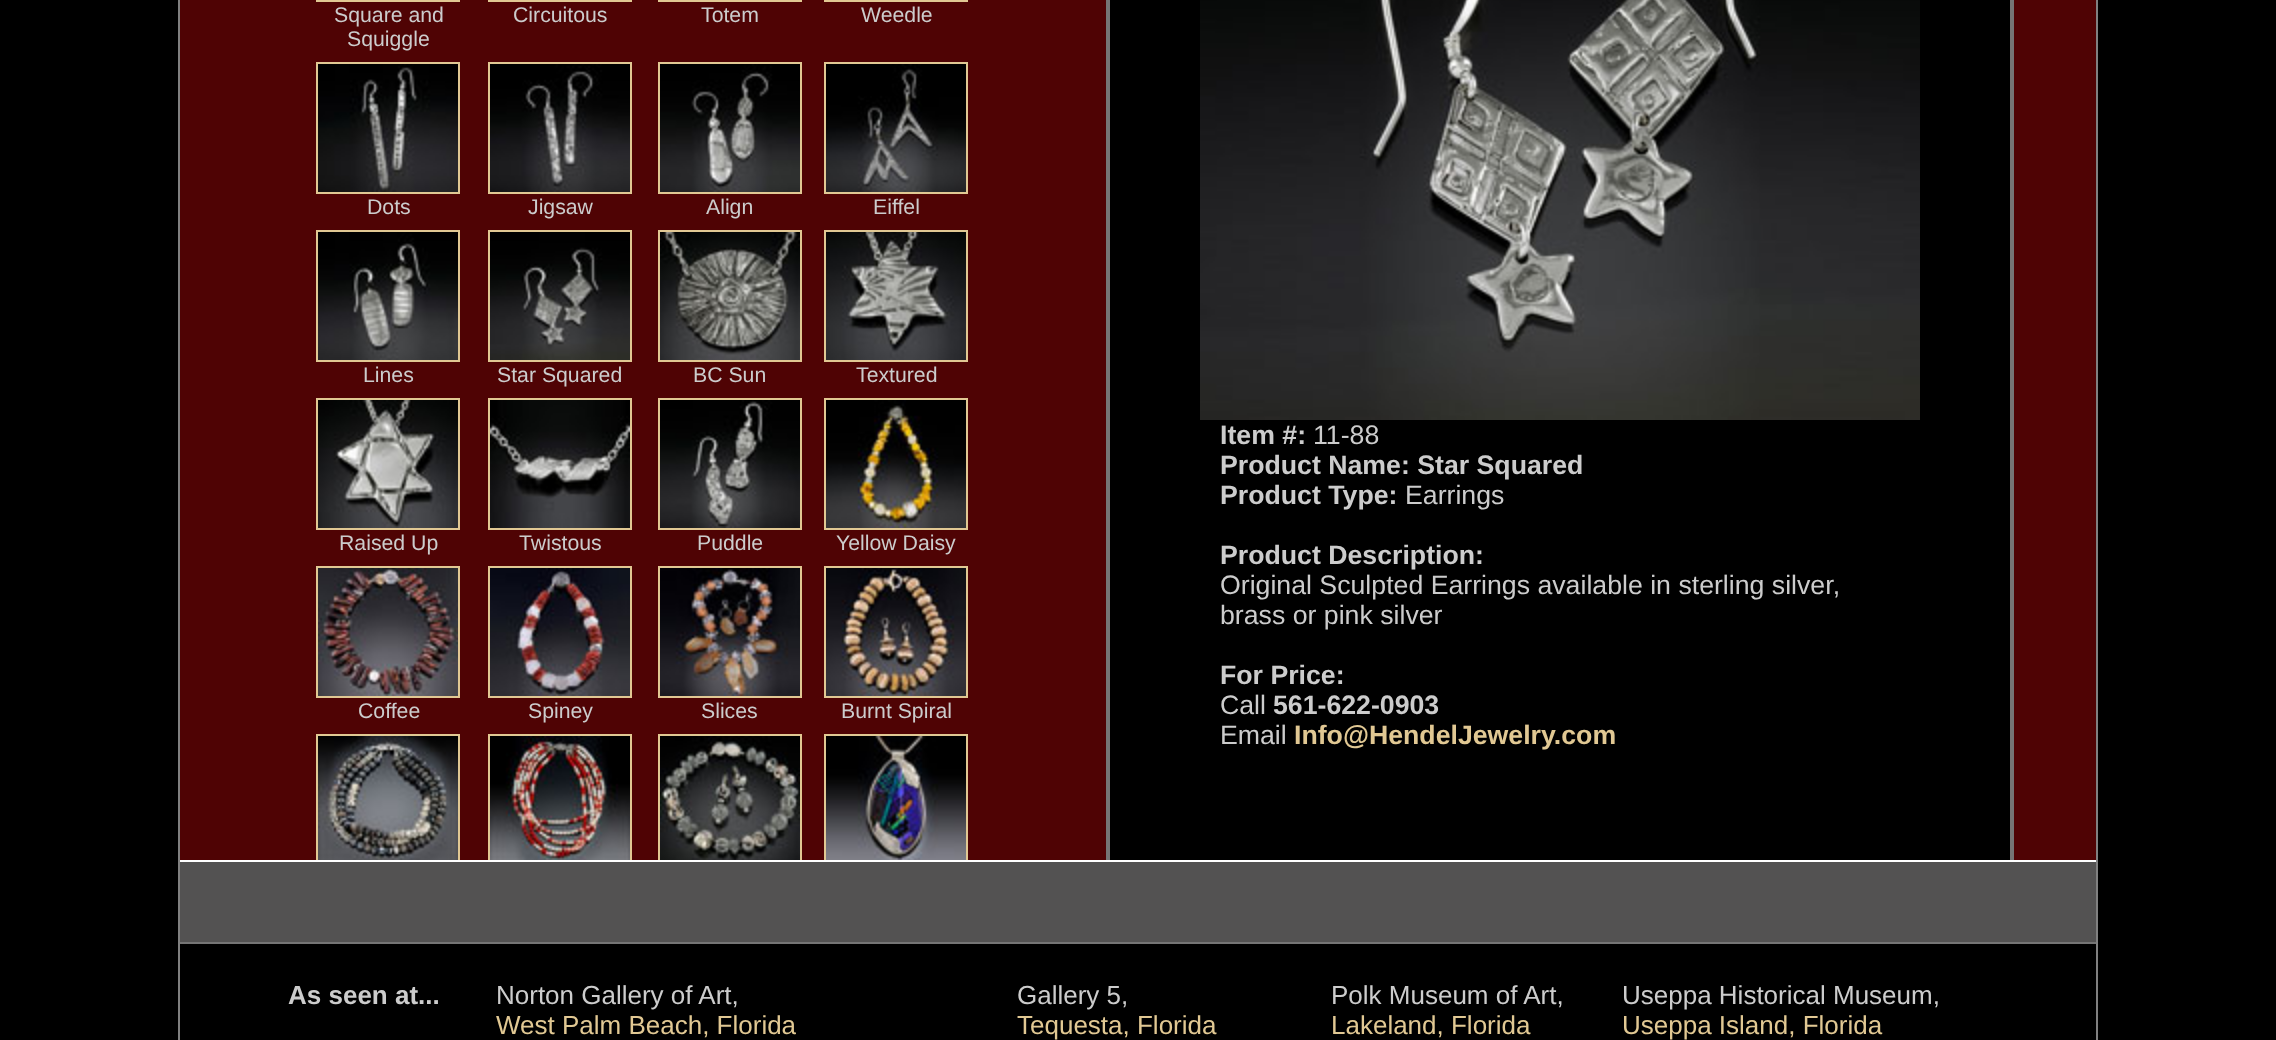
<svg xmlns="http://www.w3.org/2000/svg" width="2276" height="1040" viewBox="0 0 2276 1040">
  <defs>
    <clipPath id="clip1"><rect x="274" y="0" width="740" height="860"/></clipPath>
  </defs>
  <rect width="100%" height="100%" fill="rgb(0,0,0)"/>
  <rect x="179" y="-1" width="1918" height="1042" fill="none" stroke="rgb(128,128,128)" stroke-width="2"/>
  <rect x="180" y="0" width="1916" height="860" fill="rgb(79,3,4)"/>
  <rect x="317" y="-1" width="142" height="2" fill="none" stroke="rgb(225,200,147)" stroke-width="2"/>
  <g font-family="Liberation Sans" font-size="21.25" fill="rgb(204,204,204)">
    <text x="334" y="22">Square and</text>
    <text x="347" y="46">Squiggle</text>
  </g>
  <rect x="489" y="-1" width="142" height="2" fill="none" stroke="rgb(225,200,147)" stroke-width="2"/>
  <text x="513" y="22" font-family="Liberation Sans" font-size="21.25" fill="rgb(204,204,204)">Circuitous</text>
  <rect x="659" y="-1" width="142" height="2" fill="none" stroke="rgb(225,200,147)" stroke-width="2"/>
  <text x="701" y="22" font-family="Liberation Sans" font-size="21.25" fill="rgb(204,204,204)">Totem</text>
  <rect x="825" y="-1" width="142" height="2" fill="none" stroke="rgb(225,200,147)" stroke-width="2"/>
  <text x="861" y="22" font-family="Liberation Sans" font-size="21.25" fill="rgb(204,204,204)">Weedle</text>
  <rect x="317" y="63" width="142" height="130" fill="none" stroke="rgb(225,200,147)" stroke-width="2"/>
  <image x="318" y="64" width="140" height="128" href="pic1.png"/>
  <text x="367" y="214" font-family="Liberation Sans" font-size="21.25" fill="rgb(204,204,204)">Dots</text>
  <rect x="489" y="63" width="142" height="130" fill="none" stroke="rgb(225,200,147)" stroke-width="2"/>
  <image x="490" y="64" width="140" height="128" href="pic2.png"/>
  <text x="528" y="214" font-family="Liberation Sans" font-size="21.25" fill="rgb(204,204,204)">Jigsaw</text>
  <rect x="659" y="63" width="142" height="130" fill="none" stroke="rgb(225,200,147)" stroke-width="2"/>
  <image x="660" y="64" width="140" height="128" href="pic3.png"/>
  <text x="706" y="214" font-family="Liberation Sans" font-size="21.25" fill="rgb(204,204,204)">Align</text>
  <rect x="825" y="63" width="142" height="130" fill="none" stroke="rgb(225,200,147)" stroke-width="2"/>
  <image x="826" y="64" width="140" height="128" href="pic4.png"/>
  <text x="873" y="214" font-family="Liberation Sans" font-size="21.25" fill="rgb(204,204,204)">Eiffel</text>
  <rect x="317" y="231" width="142" height="130" fill="none" stroke="rgb(225,200,147)" stroke-width="2"/>
  <image x="318" y="232" width="140" height="128" href="pic5.png"/>
  <text x="363" y="382" font-family="Liberation Sans" font-size="21.25" fill="rgb(204,204,204)">Lines</text>
  <rect x="489" y="231" width="142" height="130" fill="none" stroke="rgb(225,200,147)" stroke-width="2"/>
  <image x="490" y="232" width="140" height="128" href="pic6.png"/>
  <text x="497" y="382" font-family="Liberation Sans" font-size="21.25" fill="rgb(204,204,204)">Star Squared</text>
  <rect x="659" y="231" width="142" height="130" fill="none" stroke="rgb(225,200,147)" stroke-width="2"/>
  <image x="660" y="232" width="140" height="128" href="pic7.png"/>
  <text x="693" y="382" font-family="Liberation Sans" font-size="21.25" fill="rgb(204,204,204)">BC Sun</text>
  <rect x="825" y="231" width="142" height="130" fill="none" stroke="rgb(225,200,147)" stroke-width="2"/>
  <image x="826" y="232" width="140" height="128" href="pic8.png"/>
  <text x="856" y="382" font-family="Liberation Sans" font-size="21.25" fill="rgb(204,204,204)">Textured</text>
  <rect x="317" y="399" width="142" height="130" fill="none" stroke="rgb(225,200,147)" stroke-width="2"/>
  <image x="318" y="400" width="140" height="128" href="pic9.png"/>
  <text x="339" y="550" font-family="Liberation Sans" font-size="21.25" fill="rgb(204,204,204)">Raised Up</text>
  <rect x="489" y="399" width="142" height="130" fill="none" stroke="rgb(225,200,147)" stroke-width="2"/>
  <image x="490" y="400" width="140" height="128" href="pic10.png"/>
  <text x="519" y="550" font-family="Liberation Sans" font-size="21.25" fill="rgb(204,204,204)">Twistous</text>
  <rect x="659" y="399" width="142" height="130" fill="none" stroke="rgb(225,200,147)" stroke-width="2"/>
  <image x="660" y="400" width="140" height="128" href="pic11.png"/>
  <text x="697" y="550" font-family="Liberation Sans" font-size="21.25" fill="rgb(204,204,204)">Puddle</text>
  <rect x="825" y="399" width="142" height="130" fill="none" stroke="rgb(225,200,147)" stroke-width="2"/>
  <image x="826" y="400" width="140" height="128" href="pic12.png"/>
  <text x="836" y="550" font-family="Liberation Sans" font-size="21.25" fill="rgb(204,204,204)">Yellow Daisy</text>
  <rect x="317" y="567" width="142" height="130" fill="none" stroke="rgb(225,200,147)" stroke-width="2"/>
  <image x="318" y="568" width="140" height="128" href="pic13.png"/>
  <text x="358" y="718" font-family="Liberation Sans" font-size="21.25" fill="rgb(204,204,204)">Coffee</text>
  <rect x="489" y="567" width="142" height="130" fill="none" stroke="rgb(225,200,147)" stroke-width="2"/>
  <image x="490" y="568" width="140" height="128" href="pic14.png"/>
  <text x="528" y="718" font-family="Liberation Sans" font-size="21.25" fill="rgb(204,204,204)">Spiney</text>
  <rect x="659" y="567" width="142" height="130" fill="none" stroke="rgb(225,200,147)" stroke-width="2"/>
  <image x="660" y="568" width="140" height="128" href="pic15.png"/>
  <text x="701" y="718" font-family="Liberation Sans" font-size="21.25" fill="rgb(204,204,204)">Slices</text>
  <rect x="825" y="567" width="142" height="130" fill="none" stroke="rgb(225,200,147)" stroke-width="2"/>
  <image x="826" y="568" width="140" height="128" href="pic16.png"/>
  <text x="841" y="718" font-family="Liberation Sans" font-size="21.25" fill="rgb(204,204,204)">Burnt Spiral</text>
  <rect x="180" y="860" width="1916" height="2" fill="rgb(255,255,255)"/>
  <rect x="180" y="862" width="1916" height="80" fill="rgb(83,82,82)"/>
  <g clip-path="url(#clip1)">
    <rect x="317" y="735" width="142" height="130" fill="none" stroke="rgb(225,200,147)" stroke-width="2"/>
  </g>
  <image x="318" y="736" width="140" height="124" href="pic17.png"/>
  <g clip-path="url(#clip1)">
    <rect x="489" y="735" width="142" height="130" fill="none" stroke="rgb(225,200,147)" stroke-width="2"/>
  </g>
  <image x="490" y="736" width="140" height="124" href="pic18.png"/>
  <g clip-path="url(#clip1)">
    <rect x="659" y="735" width="142" height="130" fill="none" stroke="rgb(225,200,147)" stroke-width="2"/>
  </g>
  <image x="660" y="736" width="140" height="124" href="pic19.png"/>
  <g clip-path="url(#clip1)">
    <rect x="825" y="735" width="142" height="130" fill="none" stroke="rgb(225,200,147)" stroke-width="2"/>
  </g>
  <image x="826" y="736" width="140" height="124" href="pic20.png"/>
  <rect x="1106" y="0" width="4" height="860" fill="rgb(117,117,117)"/>
  <rect x="1110" y="0" width="900" height="860" fill="rgb(0,0,0)"/>
  <image x="1200" y="0" width="720" height="420" href="pic21.png"/>
  <text x="1220" y="444" font-family="Liberation Sans" font-size="26.7" font-weight="bold" fill="rgb(204,204,204)">Item #:</text>
  <text x="1313" y="444" font-family="Liberation Sans" font-size="26.7" fill="rgb(204,204,204)">11-88</text>
  <g font-family="Liberation Sans" font-size="26.7" font-weight="bold" fill="rgb(204,204,204)">
    <text>
      <tspan x="1220" y="474">Product Name: Star Squared</tspan>
      <tspan x="1220" y="504">Product Type:</tspan>
    </text>
  </g>
  <text x="1405" y="504" font-family="Liberation Sans" font-size="26.7" fill="rgb(204,204,204)">Earrings</text>
  <text x="1220" y="564" font-family="Liberation Sans" font-size="26.7" font-weight="bold" fill="rgb(204,204,204)">Product Description:</text>
  <g font-family="Liberation Sans" font-size="26.7" fill="rgb(204,204,204)">
    <text>
      <tspan x="1220" y="594">Original Sculpted Earrings available in sterling silver,</tspan>
      <tspan x="1220" y="624">brass or pink silver</tspan>
    </text>
  </g>
  <text x="1220" y="684" font-family="Liberation Sans" font-size="26.7" font-weight="bold" fill="rgb(204,204,204)">For Price:</text>
  <text x="1220" y="714" font-family="Liberation Sans" font-size="26.7" fill="rgb(204,204,204)">Call</text>
  <text x="1273" y="714" font-family="Liberation Sans" font-size="26.7" font-weight="bold" fill="rgb(204,204,204)">561-622-0903</text>
  <text x="1220" y="744" font-family="Liberation Sans" font-size="26.7" fill="rgb(204,204,204)">Email</text>
  <text x="1294" y="744" font-family="Liberation Sans" font-size="26.7" font-weight="bold" fill="rgb(225,200,147)">Info@HendelJewelry.com</text>
  <rect x="2010" y="0" width="4" height="860" fill="rgb(117,117,117)"/>
  <rect x="180" y="942" width="1916" height="2" fill="rgb(117,117,117)"/>
  <text x="288" y="1004" font-family="Liberation Sans" font-size="26" font-weight="bold" fill="rgb(204,204,204)">As seen at...</text>
  <text x="496" y="1004" font-family="Liberation Sans" font-size="26" fill="rgb(204,204,204)">Norton Gallery of Art,</text>
  <text x="496" y="1034" font-family="Liberation Sans" font-size="26" fill="rgb(225,200,147)">West Palm Beach, Florida</text>
  <text x="1017" y="1004" font-family="Liberation Sans" font-size="26" fill="rgb(204,204,204)">Gallery 5,</text>
  <text x="1017" y="1034" font-family="Liberation Sans" font-size="26" fill="rgb(225,200,147)">Tequesta, Florida</text>
  <text x="1331" y="1004" font-family="Liberation Sans" font-size="26" fill="rgb(204,204,204)">Polk Museum of Art,</text>
  <text x="1331" y="1034" font-family="Liberation Sans" font-size="26" fill="rgb(225,200,147)">Lakeland, Florida</text>
  <text x="1622" y="1004" font-family="Liberation Sans" font-size="26" fill="rgb(204,204,204)">Useppa Historical Museum,</text>
  <text x="1622" y="1034" font-family="Liberation Sans" font-size="26" fill="rgb(225,200,147)">Useppa Island, Florida</text>
</svg>
